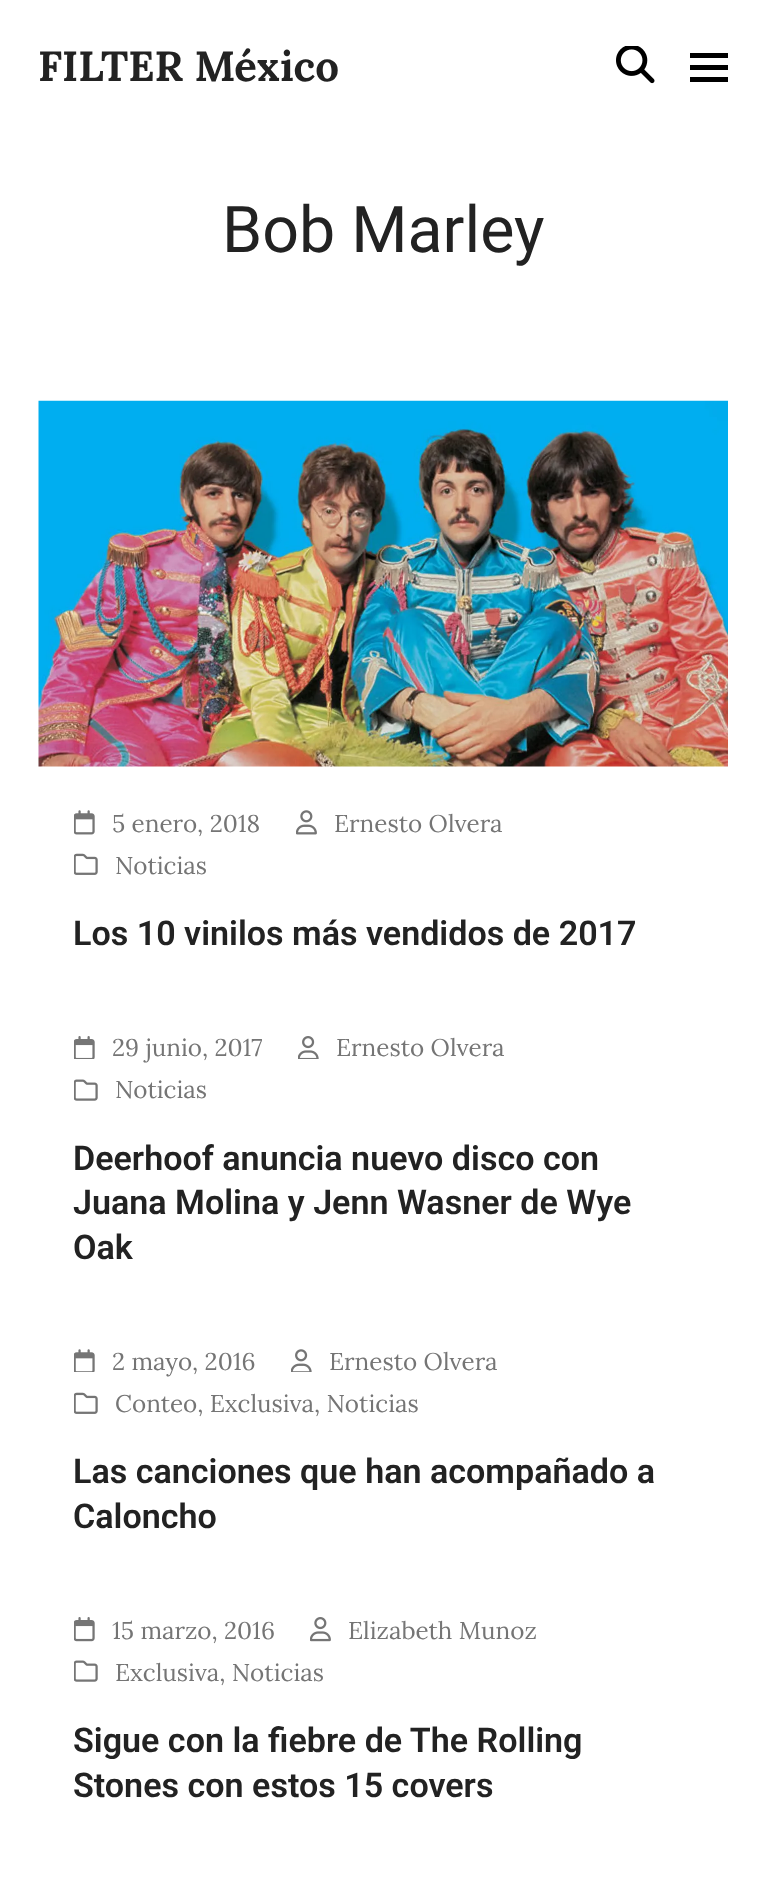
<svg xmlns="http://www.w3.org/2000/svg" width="765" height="1900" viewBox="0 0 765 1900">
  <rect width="100%" height="100%" fill="rgb(255,255,255)"/>
  <text x="38" y="81" font-family="Lora" font-size="42" font-weight="bold" fill="rgb(34,34,34)">FILTER México</text>
  <image x="616" y="46" width="39" height="38" href="pic1.png"/>
  <rect x="690" y="65" width="38" height="5" fill="rgb(0,0,0)"/>
  <rect x="690" y="53" width="38" height="5" fill="rgb(0,0,0)"/>
  <rect x="690" y="77" width="38" height="5" fill="rgb(0,0,0)"/>
  <text x="222" y="252" font-family="Roboto" font-size="64.5" fill="rgb(34,34,34)">Bob Marley</text>
  <image x="38" y="400" width="690" height="367" href="pic2.png"/>
  <image x="74" y="810" width="21" height="25" href="pic3.png"/>
  <text x="112" y="832" font-family="Lora" font-size="24.25" fill="rgb(117,117,117)">5 enero, 2018</text>
  <image x="296" y="810" width="21" height="25" href="pic4.png"/>
  <text x="334" y="832" font-family="Lora" font-size="24.25" fill="rgb(117,117,117)">Ernesto Olvera</text>
  <image x="74" y="853" width="24" height="22" href="pic5.png"/>
  <text x="115" y="874" font-family="Lora" font-size="24.25" fill="rgb(117,117,117)">Noticias</text>
  <text x="73" y="945" font-family="Roboto" font-size="34.1" font-weight="600" fill="rgb(34,34,34)">Los 10 vinilos más vendidos de 2017</text>
  <image x="74" y="1036" width="21" height="23" href="pic6.png"/>
  <text x="112" y="1056" font-family="Lora" font-size="24.25" fill="rgb(117,117,117)">29 junio, 2017</text>
  <image x="298" y="1036" width="21" height="23" href="pic7.png"/>
  <text x="336" y="1056" font-family="Lora" font-size="24.25" fill="rgb(117,117,117)">Ernesto Olvera</text>
  <image x="74" y="1079" width="24" height="22" href="pic8.png"/>
  <text x="115" y="1098" font-family="Lora" font-size="24.25" fill="rgb(117,117,117)">Noticias</text>
  <g font-family="Roboto" font-size="34.1" font-weight="600" fill="rgb(34,34,34)">
    <text>
      <tspan x="73" y="1170">Deerhoof anuncia nuevo disco con</tspan>
      <tspan x="73" y="1214">Juana Molina y Jenn Wasner de Wye</tspan>
      <tspan x="73" y="1259">Oak</tspan>
    </text>
  </g>
  <image x="74" y="1349" width="21" height="23" href="pic9.png"/>
  <text x="112" y="1370" font-family="Lora" font-size="24.25" fill="rgb(117,117,117)">2 mayo, 2016</text>
  <image x="291" y="1349" width="21" height="23" href="pic10.png"/>
  <text x="329" y="1370" font-family="Lora" font-size="24.25" fill="rgb(117,117,117)">Ernesto Olvera</text>
  <image x="74" y="1392" width="24" height="22" href="pic5.png"/>
  <text x="115" y="1412" font-family="Lora" font-size="24.25" fill="rgb(117,117,117)">Conteo, Exclusiva, Noticias</text>
  <g font-family="Roboto" font-size="34.1" font-weight="600" fill="rgb(34,34,34)">
    <text>
      <tspan x="73" y="1483">Las canciones que han acompañado a</tspan>
      <tspan x="73" y="1528">Caloncho</tspan>
    </text>
  </g>
  <image x="74" y="1617" width="21" height="25" href="pic11.png"/>
  <text x="112" y="1639" font-family="Lora" font-size="24.25" fill="rgb(117,117,117)">15 marzo, 2016</text>
  <image x="310" y="1617" width="21" height="25" href="pic12.png"/>
  <text x="348" y="1639" font-family="Lora" font-size="24.25" fill="rgb(117,117,117)">Elizabeth Munoz</text>
  <image x="74" y="1660" width="24" height="22" href="pic8.png"/>
  <text x="115" y="1681" font-family="Lora" font-size="24.25" fill="rgb(117,117,117)">Exclusiva, Noticias</text>
  <g font-family="Roboto" font-size="34.1" font-weight="600" fill="rgb(34,34,34)">
    <text>
      <tspan x="73" y="1752">Sigue con la fiebre de The Rolling</tspan>
      <tspan x="73" y="1797">Stones con estos 15 covers</tspan>
    </text>
  </g>
</svg>
